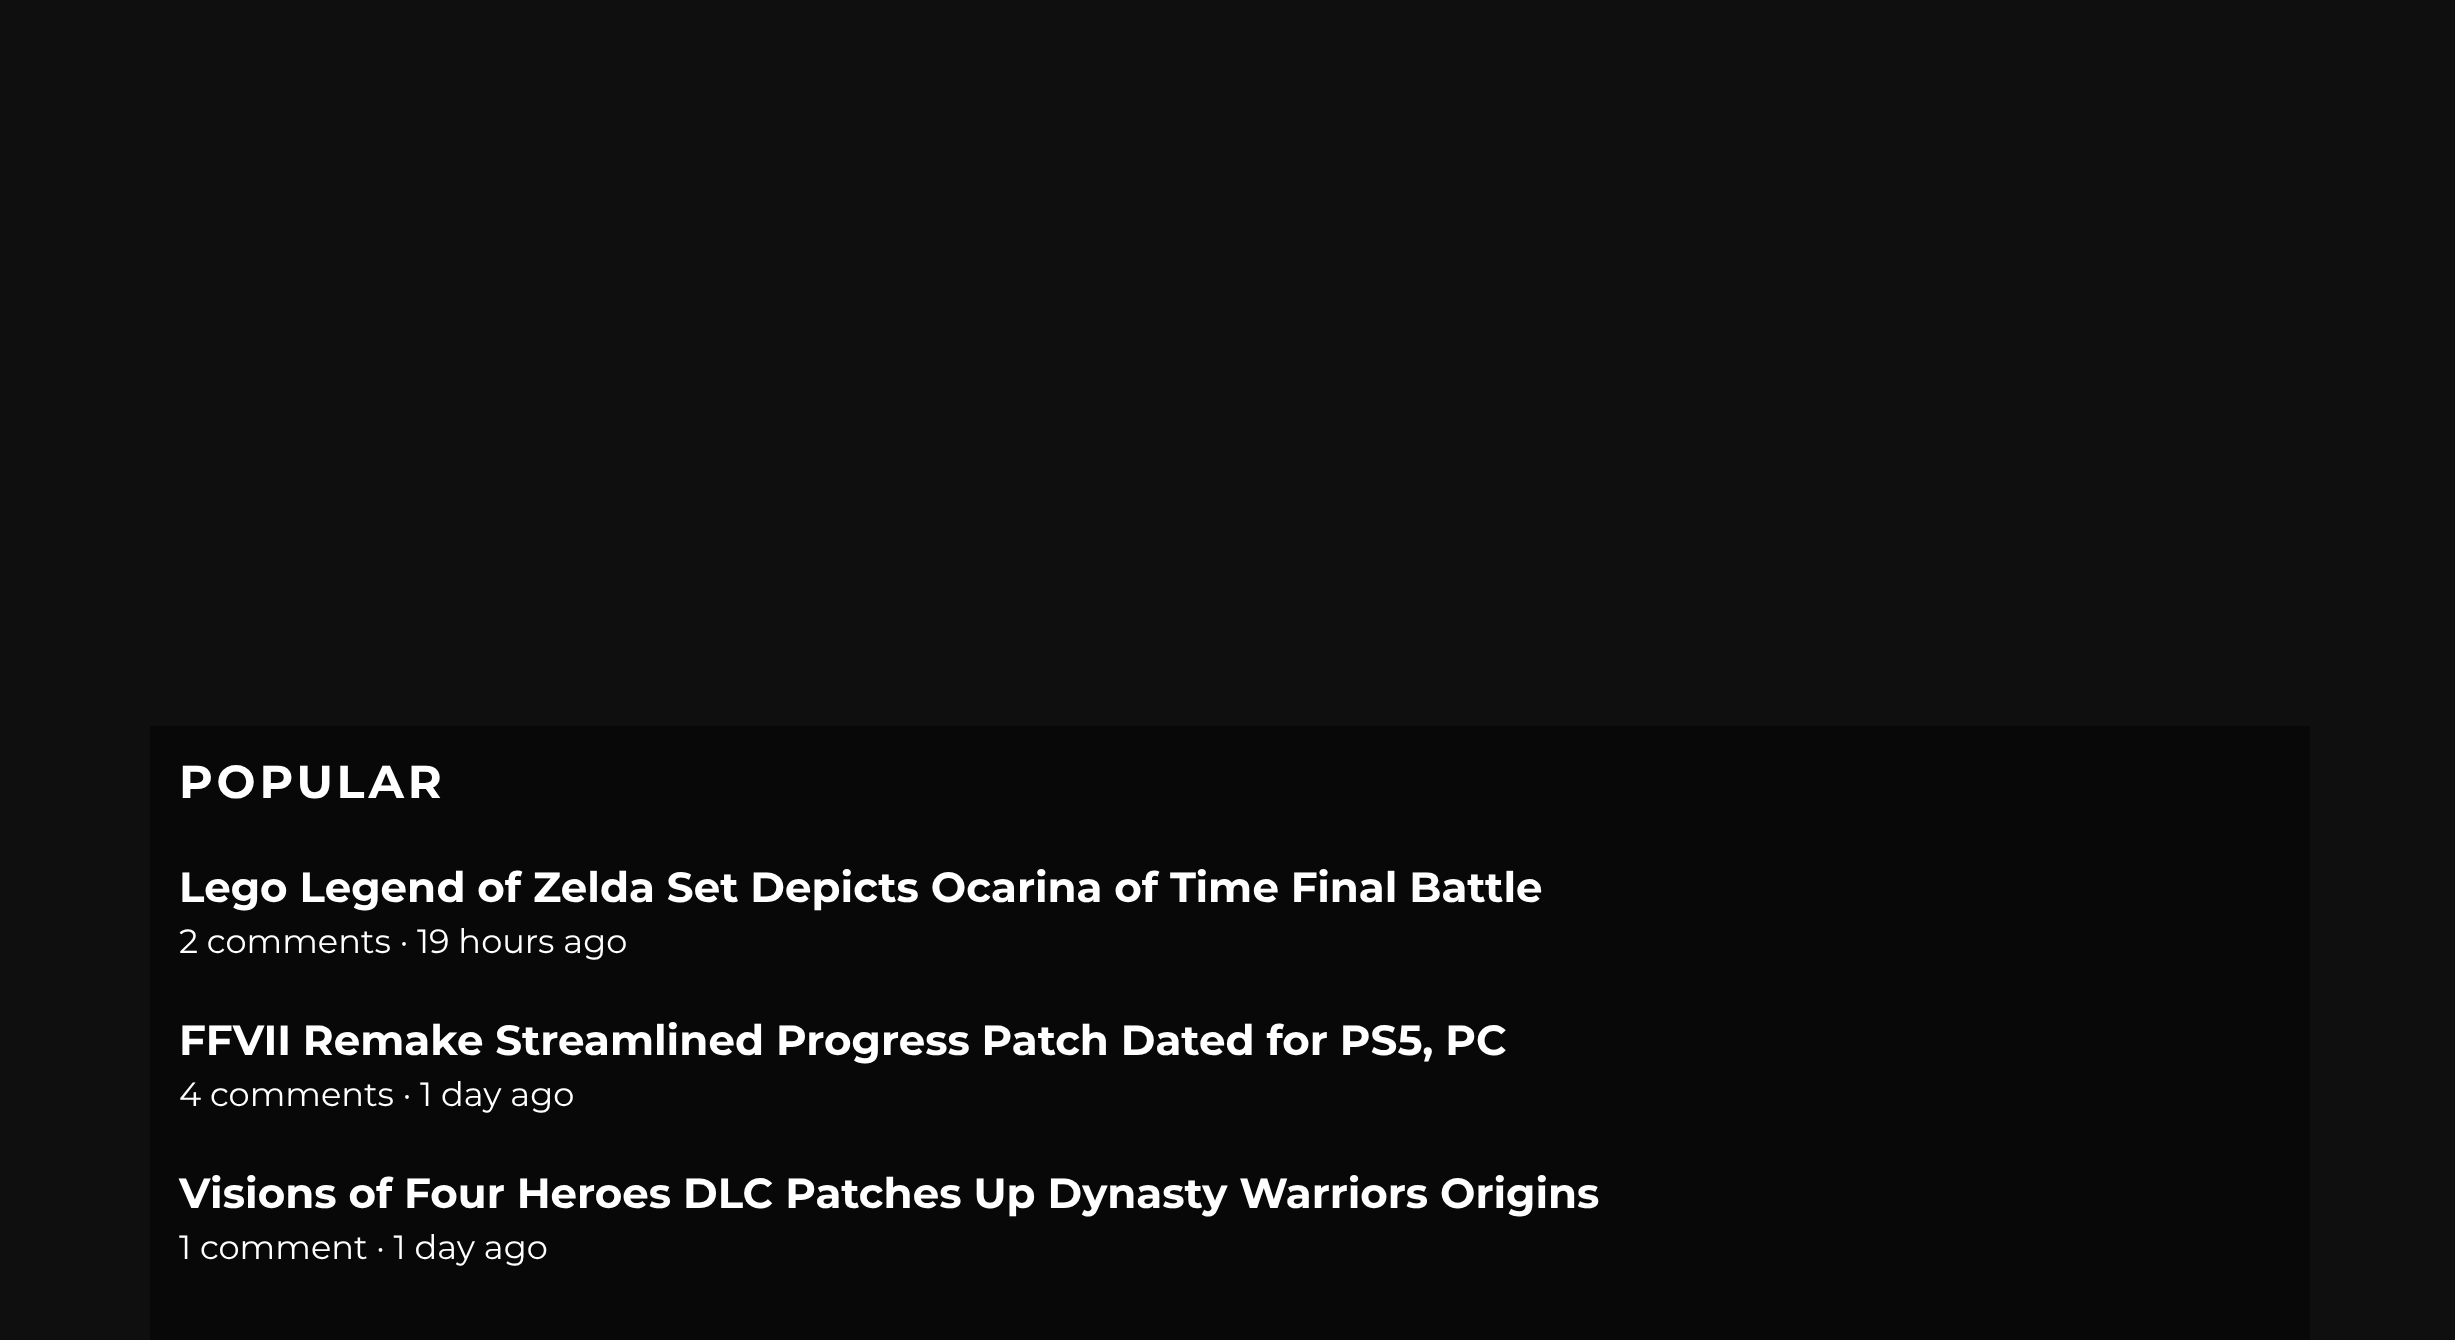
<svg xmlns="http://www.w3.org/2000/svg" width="2455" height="1340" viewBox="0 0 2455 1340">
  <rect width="100%" height="100%" fill="rgb(15,15,15)"/>
  <rect x="150" y="726" width="2160" height="614" fill="rgb(8,8,8)"/>
  <text x="179" y="798" font-family="Montserrat" font-size="46.25" font-weight="bold" letter-spacing="3.75" fill="rgb(255,255,255)">POPULAR</text>
  <text x="179" y="902" font-family="Montserrat" font-size="42" font-weight="bold" fill="rgb(255,255,255)">Lego Legend of Zelda Set Depicts Ocarina of Time Final Battle</text>
  <text x="179" y="953" font-family="Montserrat" font-size="33.6" fill="rgb(255,255,255)">2 comments · 19 hours ago</text>
  <text x="179" y="1055" font-family="Montserrat" font-size="42" font-weight="bold" fill="rgb(255,255,255)">FFVII Remake Streamlined Progress Patch Dated for PS5, PC</text>
  <text x="179" y="1106" font-family="Montserrat" font-size="33.6" fill="rgb(255,255,255)">4 comments · 1 day ago</text>
  <text x="179" y="1208" font-family="Montserrat" font-size="42" font-weight="bold" fill="rgb(255,255,255)">Visions of Four Heroes DLC Patches Up Dynasty Warriors Origins</text>
  <text x="179" y="1259" font-family="Montserrat" font-size="33.6" fill="rgb(255,255,255)">1 comment · 1 day ago</text>
</svg>
